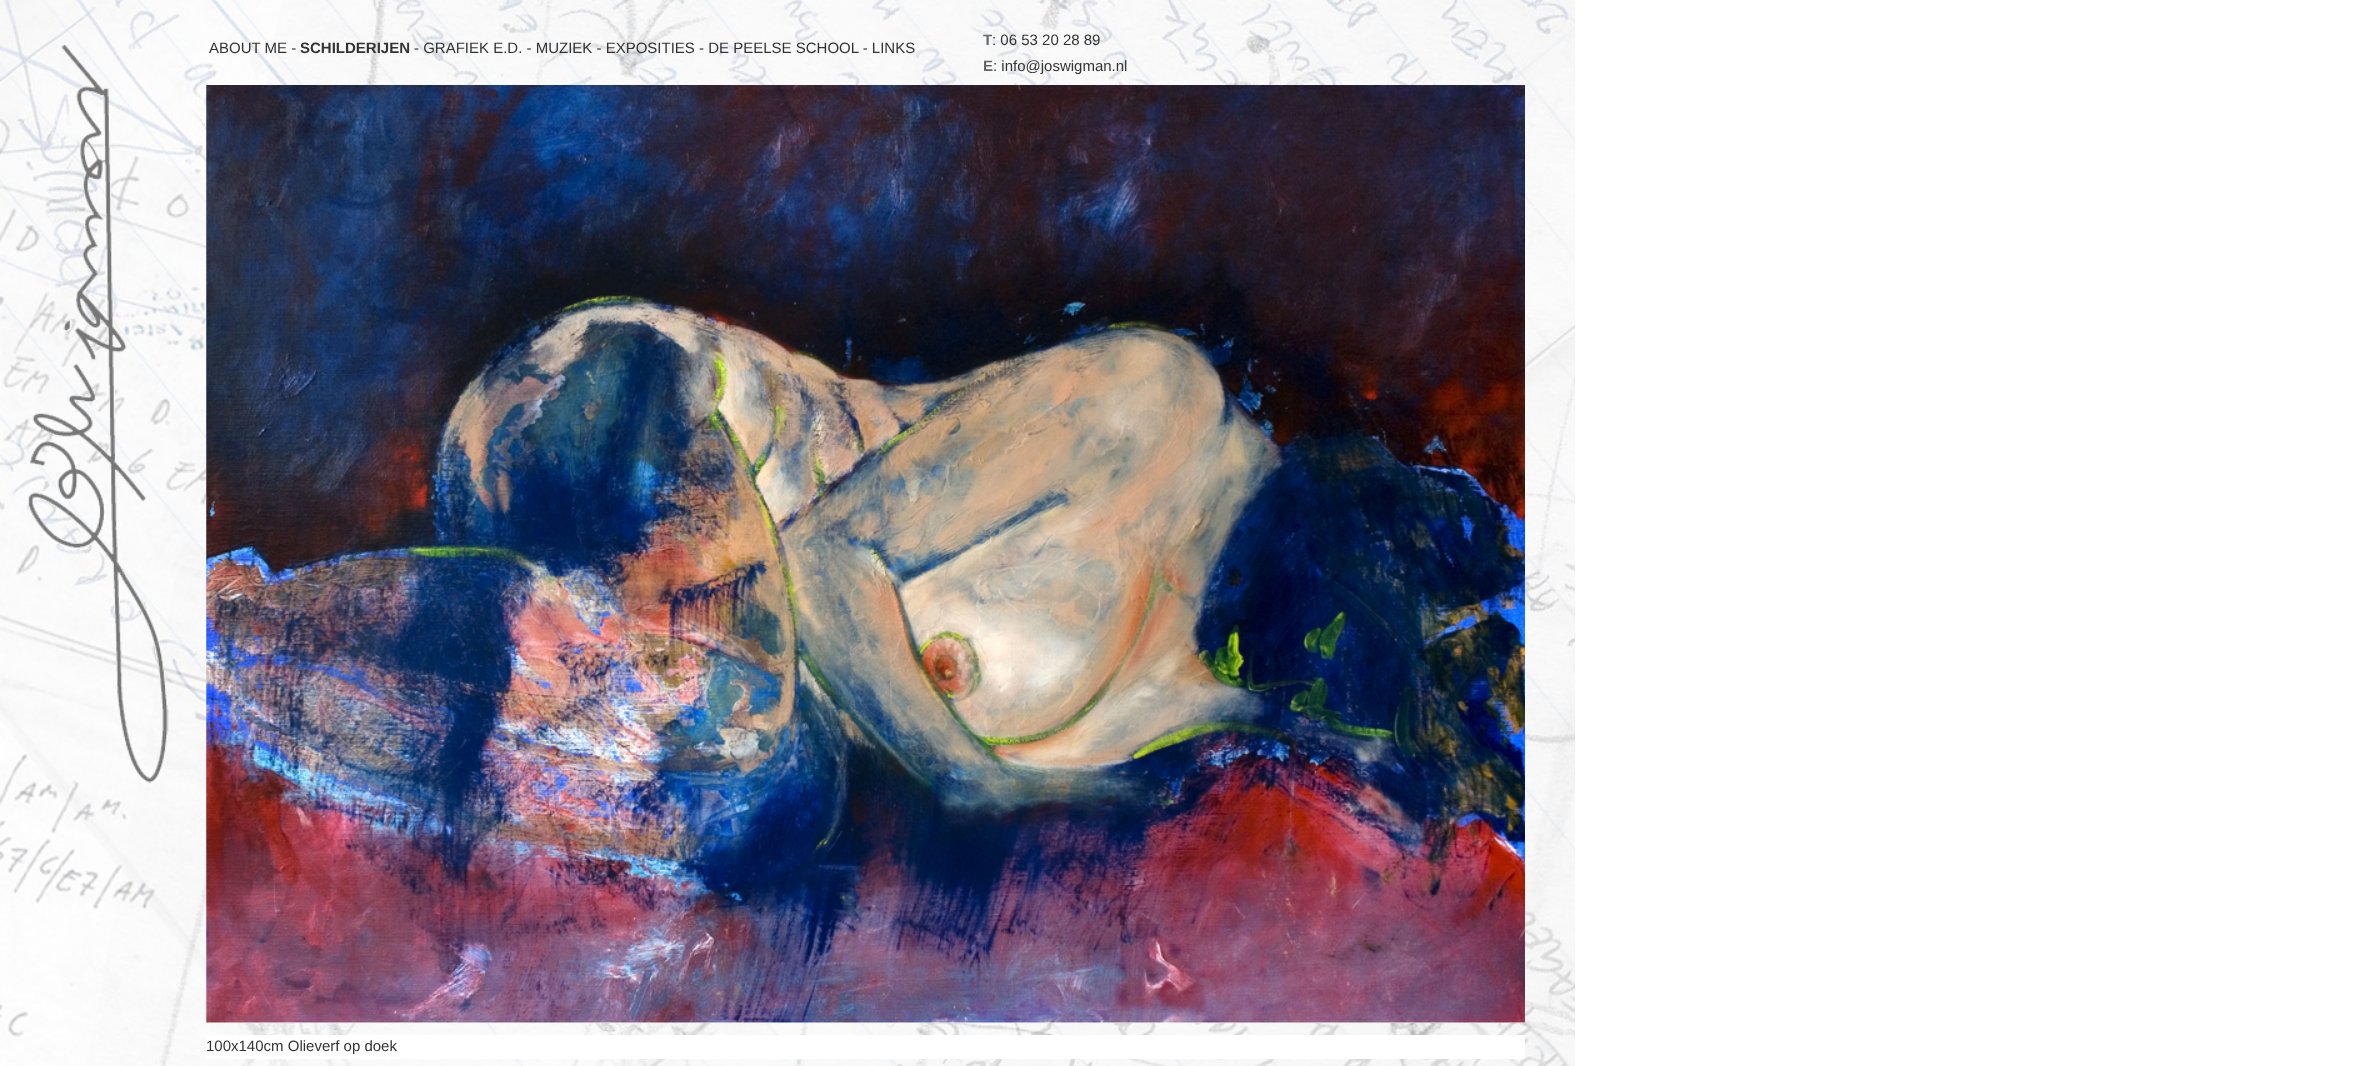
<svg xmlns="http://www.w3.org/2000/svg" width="2354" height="1066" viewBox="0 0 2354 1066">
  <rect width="100%" height="100%" fill="rgb(255,255,255)"/>
  <image x="0" y="0" width="1575" height="1066" href="pic1.png"/>
  <image x="28" y="45" width="141" height="739" href="pic2.png"/>
  <text x="209" y="53" font-family="Liberation Sans" font-size="15" fill="rgb(51,51,51)">ABOUT ME -</text>
  <text x="300" y="53" font-family="Liberation Sans" font-size="15" font-weight="bold" fill="rgb(51,51,51)">SCHILDERIJEN</text>
  <text x="414" y="53" font-family="Liberation Sans" font-size="15" fill="rgb(51,51,51)">- GRAFIEK E.D. - MUZIEK - EXPOSITIES - DE PEELSE SCHOOL - LINKS</text>
  <text x="983" y="45" font-family="Liberation Sans" font-size="15" font-weight="bold" fill="rgb(102,102,102)">T</text>
  <text x="992" y="45" font-family="Liberation Sans" font-size="15" fill="rgb(51,51,51)">: 06 53 20 28 89</text>
  <text x="983" y="71" font-family="Liberation Sans" font-size="15" font-weight="bold" fill="rgb(102,102,102)">E</text>
  <text x="993" y="71" font-family="Liberation Sans" font-size="15" fill="rgb(51,51,51)">: info@joswigman.nl</text>
  <rect x="206" y="85" width="1319" height="938" fill="rgb(255,255,255)"/>
  <image x="206" y="85" width="1319" height="938" href="pic3.png"/>
  <rect x="206" y="1035" width="1319" height="24" fill="rgb(255,255,255)"/>
  <text x="206" y="1051" font-family="Liberation Sans" font-size="15" fill="rgb(51,51,51)">100x140cm Olieverf op doek</text>
</svg>
